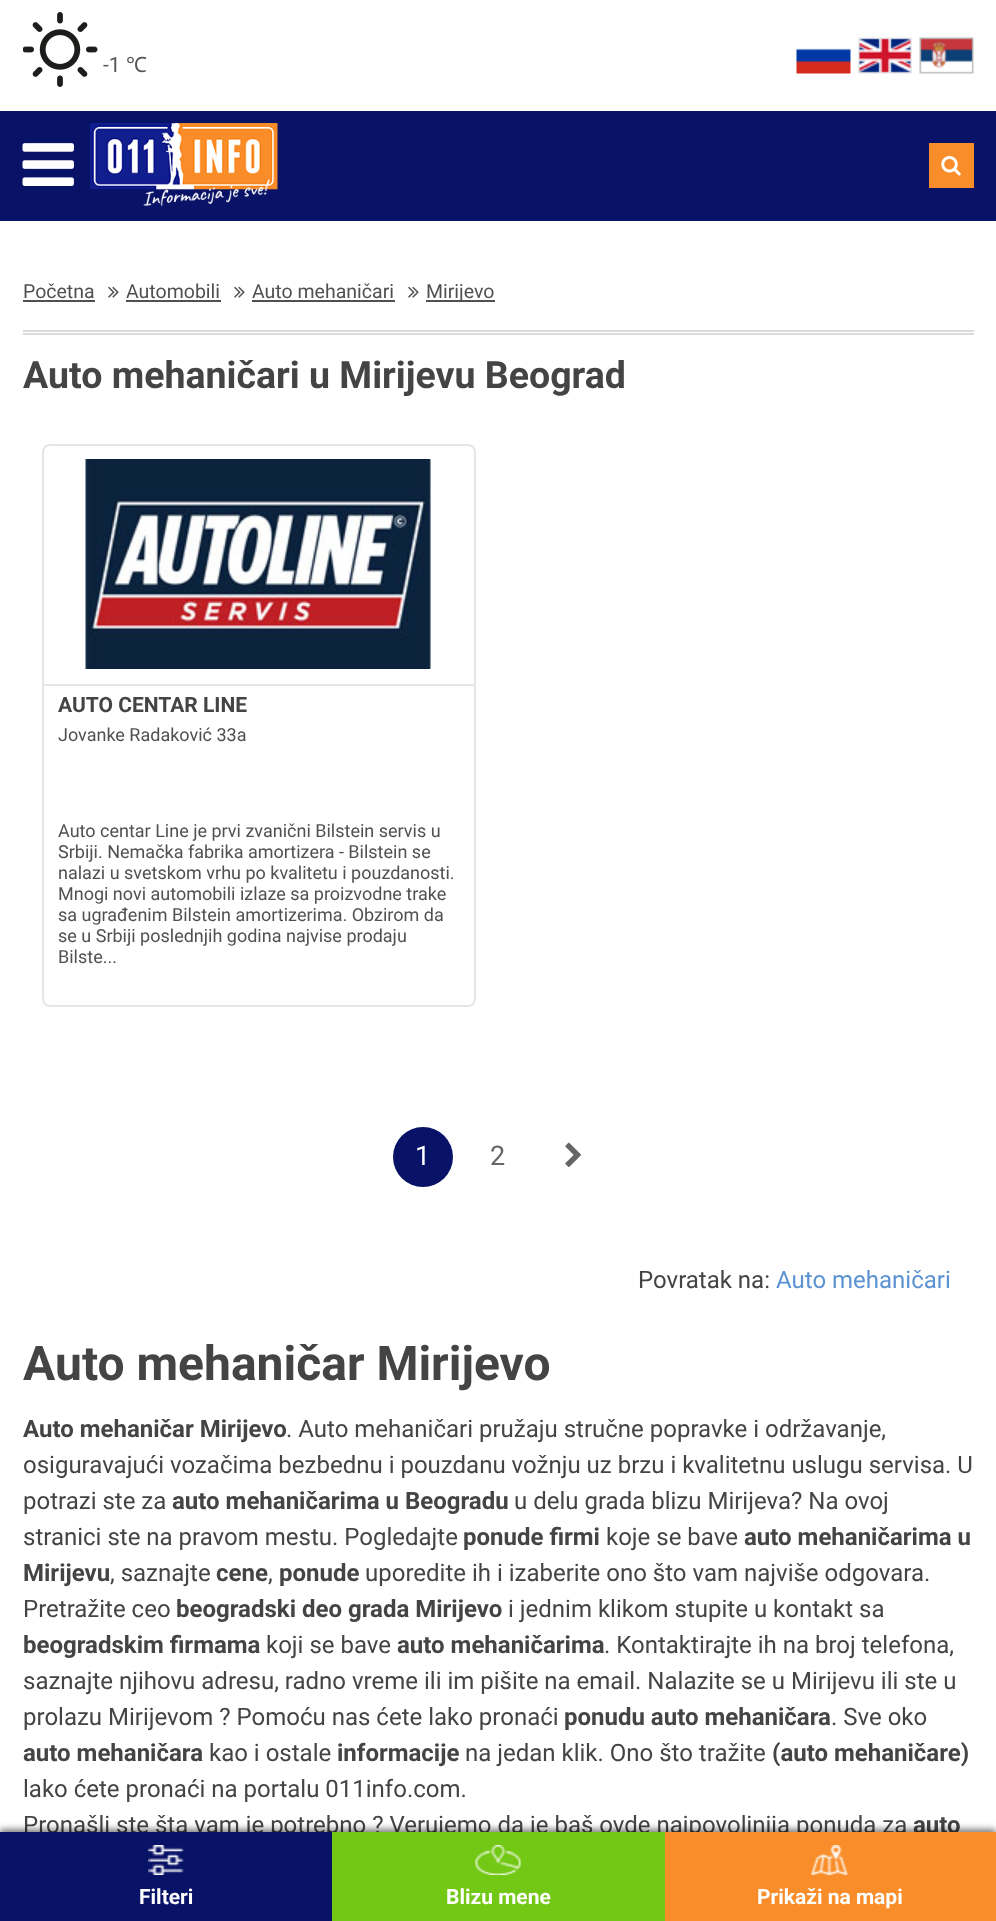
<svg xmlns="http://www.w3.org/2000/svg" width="996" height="1921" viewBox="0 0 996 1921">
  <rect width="100%" height="100%" fill="rgb(255,255,255)"/>
  <image x="23" y="12" width="75" height="75" href="pic1.png"/>
  <text x="103" y="72" font-family="Roboto" font-size="21" fill="rgb(87,87,87)">-1</text>
  <text x="126" y="72" font-family="Noto Sans" font-size="21" fill="rgb(87,87,87)">℃</text>
  <image x="796" y="48" width="55" height="26" href="pic2.png"/>
  <image x="858" y="37" width="54" height="37" href="pic3.png"/>
  <image x="919" y="37" width="55" height="37" href="pic4.png"/>
  <rect x="0" y="111" width="996" height="110" fill="rgb(8,18,102)"/>
  <image x="22" y="143" width="52" height="43" href="pic5.png"/>
  <image x="90" y="123" width="188" height="83" href="pic6.png"/>
  <rect x="929" y="143" width="45" height="45" fill="rgb(249,141,41)"/>
  <image x="941" y="156" width="20" height="20" href="pic7.png"/>
  <text x="23" y="298" font-family="Roboto" font-size="19.5" fill="rgb(80,80,80)">Početna</text>
  <rect x="23" y="300" width="72" height="2" fill="rgb(80,80,80)"/>
  <image x="108" y="286" width="11" height="12" href="pic8.png"/>
  <text x="126" y="298" font-family="Roboto" font-size="19.5" fill="rgb(80,80,80)">Automobili</text>
  <rect x="126" y="300" width="95" height="2" fill="rgb(80,80,80)"/>
  <image x="234" y="286" width="11" height="12" href="pic8.png"/>
  <text x="252" y="298" font-family="Roboto" font-size="19.5" fill="rgb(80,80,80)">Auto mehaničari</text>
  <rect x="252" y="300" width="143" height="2" fill="rgb(80,80,80)"/>
  <image x="408" y="286" width="11" height="12" href="pic8.png"/>
  <rect x="426" y="300" width="69" height="2" fill="rgb(80,80,80)"/>
  <text x="426" y="298" font-family="Roboto" font-size="19.5" fill="rgb(80,80,80)">Mirijevo</text>
  <rect x="23" y="330" width="951" height="2" fill="rgb(219,219,219)"/>
  <rect x="23" y="333" width="951" height="2" fill="rgb(219,219,219)"/>
  <text x="23" y="388" font-family="Roboto" font-size="37.5" font-weight="bold" fill="rgb(68,68,68)">Auto mehaničari u Mirijevu Beograd</text>
  <rect x="43" y="445" width="432" height="561" rx="7" fill="none" stroke="rgb(230,230,230)" stroke-width="2"/>
  <rect x="44" y="684" width="430" height="2" fill="rgb(230,230,230)"/>
  <image x="85" y="459" width="346" height="210" href="pic9.png"/>
  <text x="58" y="712" font-family="Roboto" font-size="21" font-weight="bold" fill="rgb(68,68,68)">AUTO CENTAR LINE</text>
  <g font-family="Roboto" font-size="18" fill="rgb(80,80,80)">
    <text x="58" y="741">Jovanke Radaković 33a</text>
    <text>
      <tspan x="58" y="837">Auto centar Line je prvi zvanični Bilstein servis u</tspan>
      <tspan x="58" y="858">Srbiji. Nemačka fabrika amortizera - Bilstein se</tspan>
      <tspan x="58" y="879">nalazi u svetskom vrhu po kvalitetu i pouzdanosti.</tspan>
      <tspan x="58" y="900">Mnogi novi automobili izlaze sa proizvodne trake</tspan>
      <tspan x="58" y="921">sa ugrađenim Bilstein amortizerima. Obzirom da</tspan>
      <tspan x="58" y="942">se u Srbiji poslednjih godina najvise prodaju</tspan>
      <tspan x="58" y="963">Bilste...</tspan>
    </text>
  </g>
  <circle cx="423" cy="1157" r="30" fill="rgb(8,18,102)"/>
  <text x="415" y="1165" font-family="Roboto" font-size="27" fill="rgb(255,255,255)">1</text>
  <text x="490" y="1165" font-family="Roboto" font-size="27" fill="rgb(102,102,102)">2</text>
  <image x="565" y="1142" width="16" height="25" href="pic10.png"/>
  <text x="638" y="1288" font-family="Roboto" font-size="24" fill="rgb(68,68,68)">Povratak na:</text>
  <text x="776" y="1288" font-family="Roboto" font-size="24" fill="rgb(91,146,209)">Auto mehaničari</text>
  <text x="23" y="1380" font-family="Roboto" font-size="48" font-weight="bold" fill="rgb(68,68,68)">Auto mehaničar Mirijevo</text>
  <text x="23" y="1437" font-family="Roboto" font-size="24" font-weight="bold" fill="rgb(68,68,68)">Auto mehaničar Mirijevo</text>
  <g font-family="Roboto" font-size="24" fill="rgb(68,68,68)">
    <text x="286" y="1437">. Auto mehaničari pružaju stručne popravke i održavanje,</text>
    <text>
      <tspan x="23" y="1473">osiguravajući vozačima bezbednu i pouzdanu vožnju uz brzu i kvalitetnu uslugu servisa. U</tspan>
      <tspan x="23" y="1509">potrazi ste za</tspan>
    </text>
  </g>
  <text x="172" y="1509" font-family="Roboto" font-size="24" font-weight="bold" fill="rgb(68,68,68)">auto mehaničarima u Beogradu</text>
  <g font-family="Roboto" font-size="24" fill="rgb(68,68,68)">
    <text x="514" y="1509">u delu grada blizu Mirijeva? Na ovoj</text>
    <text x="23" y="1545">stranici ste na pravom mestu. Pogledajte</text>
  </g>
  <text x="463" y="1545" font-family="Roboto" font-size="24" font-weight="bold" fill="rgb(68,68,68)">ponude firmi</text>
  <text x="606" y="1545" font-family="Roboto" font-size="24" fill="rgb(68,68,68)">koje se bave</text>
  <g font-family="Roboto" font-size="24" font-weight="bold" fill="rgb(68,68,68)">
    <text x="744" y="1545">auto mehaničarima u</text>
    <text x="23" y="1581">Mirijevu</text>
  </g>
  <text x="110" y="1581" font-family="Roboto" font-size="24" fill="rgb(68,68,68)">, saznajte</text>
  <text x="216" y="1581" font-family="Roboto" font-size="24" font-weight="bold" fill="rgb(68,68,68)">cene</text>
  <text x="268" y="1581" font-family="Roboto" font-size="24" fill="rgb(68,68,68)">,</text>
  <text x="279" y="1581" font-family="Roboto" font-size="24" font-weight="bold" fill="rgb(68,68,68)">ponude</text>
  <g font-family="Roboto" font-size="24" fill="rgb(68,68,68)">
    <text x="365" y="1581">uporedite ih i izaberite ono što vam najviše odgovara.</text>
    <text x="23" y="1617">Pretražite ceo</text>
  </g>
  <text x="176" y="1617" font-family="Roboto" font-size="24" font-weight="bold" fill="rgb(68,68,68)">beogradski deo grada Mirijevo</text>
  <text x="508" y="1617" font-family="Roboto" font-size="24" fill="rgb(68,68,68)">i jednim klikom stupite u kontakt sa</text>
  <text x="23" y="1653" font-family="Roboto" font-size="24" font-weight="bold" fill="rgb(68,68,68)">beogradskim firmama</text>
  <text x="266" y="1653" font-family="Roboto" font-size="24" fill="rgb(68,68,68)">koji se bave</text>
  <text x="397" y="1653" font-family="Roboto" font-size="24" font-weight="bold" fill="rgb(68,68,68)">auto mehaničarima</text>
  <g font-family="Roboto" font-size="24" fill="rgb(68,68,68)">
    <text x="604" y="1653">. Kontaktirajte ih na broj telefona,</text>
    <text>
      <tspan x="23" y="1689">saznajte njihovu adresu, radno vreme ili im pišite na email. Nalazite se u Mirijevu ili ste u</tspan>
      <tspan x="23" y="1725">prolazu Mirijevom ? Pomoću nas ćete lako pronaći</tspan>
    </text>
  </g>
  <text x="564" y="1725" font-family="Roboto" font-size="24" font-weight="bold" fill="rgb(68,68,68)">ponudu auto mehaničara</text>
  <text x="831" y="1725" font-family="Roboto" font-size="24" fill="rgb(68,68,68)">. Sve oko</text>
  <text x="23" y="1761" font-family="Roboto" font-size="24" font-weight="bold" fill="rgb(68,68,68)">auto mehaničara</text>
  <text x="209" y="1761" font-family="Roboto" font-size="24" fill="rgb(68,68,68)">kao i ostale</text>
  <text x="337" y="1761" font-family="Roboto" font-size="24" font-weight="bold" fill="rgb(68,68,68)">informacije</text>
  <text x="465" y="1761" font-family="Roboto" font-size="24" fill="rgb(68,68,68)">na jedan klik. Ono što tražite</text>
  <text x="772" y="1761" font-family="Roboto" font-size="24" font-weight="bold" fill="rgb(68,68,68)">(auto mehaničare)</text>
  <g font-family="Roboto" font-size="24" fill="rgb(68,68,68)">
    <text>
      <tspan x="23" y="1797">lako ćete pronaći na portalu 011info.com.</tspan>
      <tspan x="23" y="1833">Pronašli ste šta vam je potrebno ? Verujemo da je baš ovde najpovoljnija ponuda za</tspan>
    </text>
  </g>
  <text x="913" y="1833" font-family="Roboto" font-size="24" font-weight="bold" fill="rgb(68,68,68)">auto</text>
  <rect x="0" y="1829" width="996" height="90" fill="rgba(0,0,0,0.5)" filter="blur(3px)"/>
  <rect x="0" y="1832" width="332" height="89" fill="rgb(8,18,102)"/>
  <image x="148" y="1845" width="36" height="30" href="pic11.png"/>
  <text x="139" y="1904" font-family="Roboto" font-size="21" font-weight="bold" fill="rgb(255,255,255)">Filteri</text>
  <rect x="332" y="1832" width="333" height="89" fill="rgb(114,200,20)"/>
  <image x="475" y="1845" width="46" height="30" href="pic12.png"/>
  <text x="446" y="1904" font-family="Roboto" font-size="21" font-weight="bold" fill="rgb(255,255,255)">Blizu mene</text>
  <rect x="665" y="1832" width="331" height="89" fill="rgb(249,141,41)"/>
  <image x="811" y="1845" width="37" height="30" href="pic13.png"/>
  <text x="757" y="1904" font-family="Roboto" font-size="21" font-weight="bold" fill="rgb(255,255,255)">Prikaži na mapi</text>
</svg>
